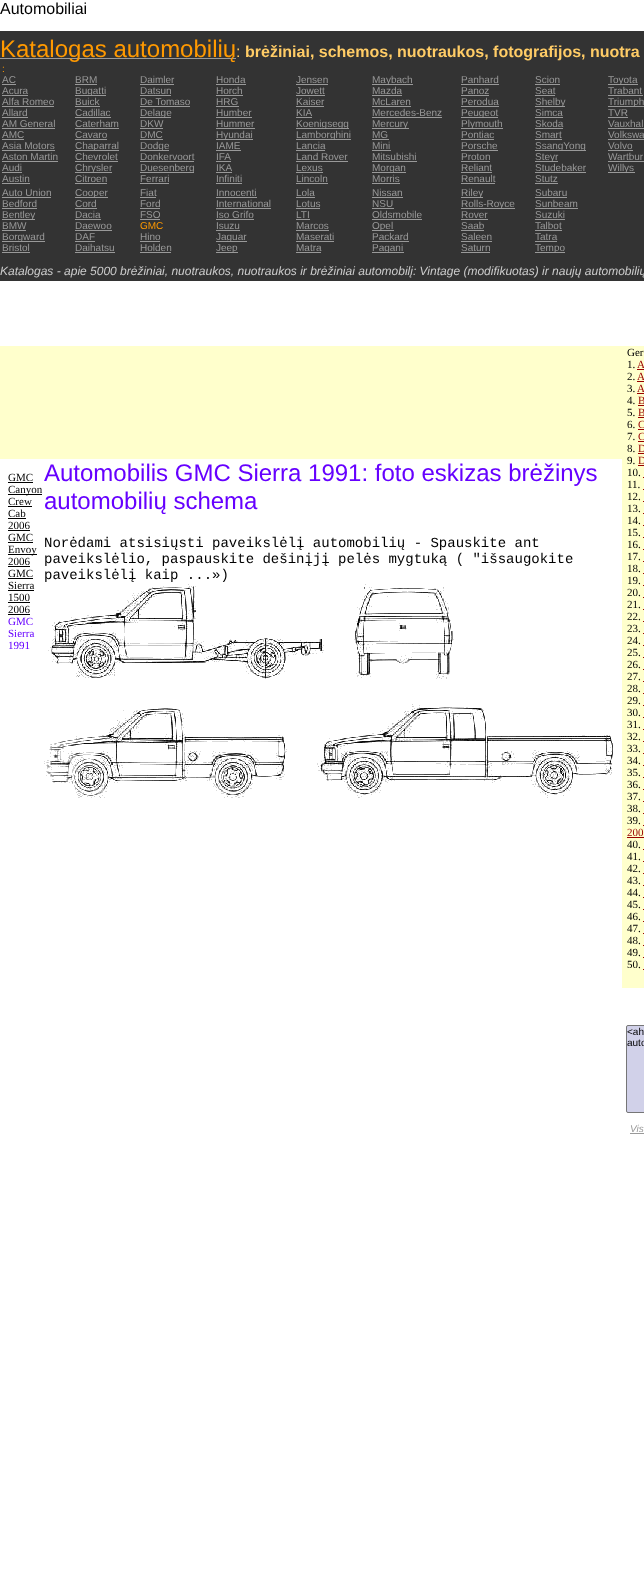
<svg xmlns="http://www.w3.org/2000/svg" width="644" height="1575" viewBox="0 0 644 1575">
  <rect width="100%" height="100%" fill="rgb(255,255,255)"/>
  <text x="0" y="14" font-family="Liberation Sans" font-size="16" fill="rgb(0,0,0)">Automobiliai</text>
  <rect x="0" y="31" width="644" height="250" fill="rgb(51,51,51)"/>
  <rect x="0" y="58" width="236" height="1" fill="rgb(153,153,153)"/>
  <text x="0" y="57" font-family="Liberation Sans" font-size="24" fill="rgb(255,153,0)">Katalogas automobilių</text>
  <text x="236" y="57" font-family="Liberation Sans" font-size="16" fill="rgb(255,204,102)">:</text>
  <text x="245" y="57" font-family="Liberation Sans" font-size="16" font-weight="bold" fill="rgb(255,204,102)">brėžiniai, schemos, nuotraukos, fotografijos, nuotra</text>
  <text x="2" y="72" font-family="Liberation Sans" font-size="10" fill="rgb(255,153,0)">:</text>
  <text x="2" y="83" font-family="Liberation Sans" font-size="10" fill="rgb(153,153,153)">AC</text>
  <rect x="2" y="84" width="14" height="1" fill="rgb(153,153,153)"/>
  <text x="75" y="83" font-family="Liberation Sans" font-size="10" fill="rgb(153,153,153)">BRM</text>
  <rect x="75" y="84" width="22" height="1" fill="rgb(153,153,153)"/>
  <text x="140" y="83" font-family="Liberation Sans" font-size="10" fill="rgb(153,153,153)">Daimler</text>
  <rect x="140" y="84" width="34" height="1" fill="rgb(153,153,153)"/>
  <text x="216" y="83" font-family="Liberation Sans" font-size="10" fill="rgb(153,153,153)">Honda</text>
  <rect x="216" y="84" width="30" height="1" fill="rgb(153,153,153)"/>
  <text x="296" y="83" font-family="Liberation Sans" font-size="10" fill="rgb(153,153,153)">Jensen</text>
  <rect x="296" y="84" width="32" height="1" fill="rgb(153,153,153)"/>
  <rect x="372" y="84" width="41" height="1" fill="rgb(153,153,153)"/>
  <g font-family="Liberation Sans" font-size="10" fill="rgb(153,153,153)">
    <text x="372" y="83">Maybach</text>
    <text x="461" y="83">Panhard</text>
  </g>
  <rect x="461" y="84" width="38" height="1" fill="rgb(153,153,153)"/>
  <text x="535" y="83" font-family="Liberation Sans" font-size="10" fill="rgb(153,153,153)">Scion</text>
  <rect x="535" y="84" width="25" height="1" fill="rgb(153,153,153)"/>
  <rect x="608" y="84" width="30" height="1" fill="rgb(153,153,153)"/>
  <g font-family="Liberation Sans" font-size="10" fill="rgb(153,153,153)">
    <text x="608" y="83">Toyota</text>
    <text x="2" y="94">Acura</text>
  </g>
  <rect x="2" y="95" width="26" height="1" fill="rgb(153,153,153)"/>
  <rect x="75" y="95" width="31" height="1" fill="rgb(153,153,153)"/>
  <g font-family="Liberation Sans" font-size="10" fill="rgb(153,153,153)">
    <text x="75" y="94">Bugatti</text>
    <text x="140" y="94">Datsun</text>
  </g>
  <rect x="140" y="95" width="31" height="1" fill="rgb(153,153,153)"/>
  <text x="216" y="94" font-family="Liberation Sans" font-size="10" fill="rgb(153,153,153)">Horch</text>
  <rect x="216" y="95" width="27" height="1" fill="rgb(153,153,153)"/>
  <text x="296" y="94" font-family="Liberation Sans" font-size="10" fill="rgb(153,153,153)">Jowett</text>
  <rect x="296" y="95" width="29" height="1" fill="rgb(153,153,153)"/>
  <text x="372" y="94" font-family="Liberation Sans" font-size="10" fill="rgb(153,153,153)">Mazda</text>
  <rect x="372" y="95" width="30" height="1" fill="rgb(153,153,153)"/>
  <text x="461" y="94" font-family="Liberation Sans" font-size="10" fill="rgb(153,153,153)">Panoz</text>
  <rect x="461" y="95" width="28" height="1" fill="rgb(153,153,153)"/>
  <text x="535" y="94" font-family="Liberation Sans" font-size="10" fill="rgb(153,153,153)">Seat</text>
  <rect x="535" y="95" width="20" height="1" fill="rgb(153,153,153)"/>
  <text x="608" y="94" font-family="Liberation Sans" font-size="10" fill="rgb(153,153,153)">Trabant</text>
  <rect x="608" y="95" width="35" height="1" fill="rgb(153,153,153)"/>
  <text x="2" y="105" font-family="Liberation Sans" font-size="10" fill="rgb(153,153,153)">Alfa Romeo</text>
  <rect x="2" y="106" width="52" height="1" fill="rgb(153,153,153)"/>
  <text x="75" y="105" font-family="Liberation Sans" font-size="10" fill="rgb(153,153,153)">Buick</text>
  <rect x="75" y="106" width="25" height="1" fill="rgb(153,153,153)"/>
  <text x="140" y="105" font-family="Liberation Sans" font-size="10" fill="rgb(153,153,153)">De Tomaso</text>
  <rect x="140" y="106" width="50" height="1" fill="rgb(153,153,153)"/>
  <text x="216" y="105" font-family="Liberation Sans" font-size="10" fill="rgb(153,153,153)">HRG</text>
  <rect x="216" y="106" width="23" height="1" fill="rgb(153,153,153)"/>
  <text x="296" y="105" font-family="Liberation Sans" font-size="10" fill="rgb(153,153,153)">Kaiser</text>
  <rect x="296" y="106" width="28" height="1" fill="rgb(153,153,153)"/>
  <text x="372" y="105" font-family="Liberation Sans" font-size="10" fill="rgb(153,153,153)">McLaren</text>
  <rect x="372" y="106" width="39" height="1" fill="rgb(153,153,153)"/>
  <text x="461" y="105" font-family="Liberation Sans" font-size="10" fill="rgb(153,153,153)">Perodua</text>
  <rect x="461" y="106" width="38" height="1" fill="rgb(153,153,153)"/>
  <rect x="535" y="106" width="30" height="1" fill="rgb(153,153,153)"/>
  <text x="535" y="105" font-family="Liberation Sans" font-size="10" fill="rgb(153,153,153)">Shelby</text>
  <rect x="608" y="106" width="36" height="1" fill="rgb(153,153,153)"/>
  <g font-family="Liberation Sans" font-size="10" fill="rgb(153,153,153)">
    <text x="608" y="105">Triumph</text>
    <text x="2" y="116">Allard</text>
  </g>
  <rect x="2" y="117" width="26" height="1" fill="rgb(153,153,153)"/>
  <text x="75" y="116" font-family="Liberation Sans" font-size="10" fill="rgb(153,153,153)">Cadillac</text>
  <rect x="75" y="117" width="36" height="1" fill="rgb(153,153,153)"/>
  <rect x="140" y="117" width="31" height="1" fill="rgb(153,153,153)"/>
  <g font-family="Liberation Sans" font-size="10" fill="rgb(153,153,153)">
    <text x="140" y="116">Delage</text>
    <text x="216" y="116">Humber</text>
  </g>
  <rect x="216" y="117" width="36" height="1" fill="rgb(153,153,153)"/>
  <text x="296" y="116" font-family="Liberation Sans" font-size="10" fill="rgb(153,153,153)">KIA</text>
  <rect x="296" y="117" width="16" height="1" fill="rgb(153,153,153)"/>
  <text x="372" y="116" font-family="Liberation Sans" font-size="10" fill="rgb(153,153,153)">Mercedes-Benz</text>
  <rect x="372" y="117" width="70" height="1" fill="rgb(153,153,153)"/>
  <rect x="461" y="117" width="37" height="1" fill="rgb(153,153,153)"/>
  <g font-family="Liberation Sans" font-size="10" fill="rgb(153,153,153)">
    <text x="461" y="116">Peugeot</text>
    <text x="535" y="116">Simca</text>
  </g>
  <rect x="535" y="117" width="28" height="1" fill="rgb(153,153,153)"/>
  <text x="608" y="116" font-family="Liberation Sans" font-size="10" fill="rgb(153,153,153)">TVR</text>
  <rect x="608" y="117" width="20" height="1" fill="rgb(153,153,153)"/>
  <text x="2" y="127" font-family="Liberation Sans" font-size="10" fill="rgb(153,153,153)">AM General</text>
  <rect x="2" y="128" width="53" height="1" fill="rgb(153,153,153)"/>
  <text x="75" y="127" font-family="Liberation Sans" font-size="10" fill="rgb(153,153,153)">Caterham</text>
  <rect x="75" y="128" width="44" height="1" fill="rgb(153,153,153)"/>
  <text x="140" y="127" font-family="Liberation Sans" font-size="10" fill="rgb(153,153,153)">DKW</text>
  <rect x="140" y="128" width="23" height="1" fill="rgb(153,153,153)"/>
  <text x="216" y="127" font-family="Liberation Sans" font-size="10" fill="rgb(153,153,153)">Hummer</text>
  <rect x="216" y="128" width="39" height="1" fill="rgb(153,153,153)"/>
  <rect x="296" y="128" width="53" height="1" fill="rgb(153,153,153)"/>
  <text x="296" y="127" font-family="Liberation Sans" font-size="10" fill="rgb(153,153,153)">Koenigsegg</text>
  <rect x="372" y="128" width="37" height="1" fill="rgb(153,153,153)"/>
  <text x="372" y="127" font-family="Liberation Sans" font-size="10" fill="rgb(153,153,153)">Mercury</text>
  <rect x="461" y="128" width="42" height="1" fill="rgb(153,153,153)"/>
  <g font-family="Liberation Sans" font-size="10" fill="rgb(153,153,153)">
    <text x="461" y="127">Plymouth</text>
    <text x="535" y="127">Skoda</text>
  </g>
  <rect x="535" y="128" width="28" height="1" fill="rgb(153,153,153)"/>
  <text x="608" y="127" font-family="Liberation Sans" font-size="10" fill="rgb(153,153,153)">Vauxhal</text>
  <rect x="608" y="128" width="36" height="1" fill="rgb(153,153,153)"/>
  <text x="2" y="138" font-family="Liberation Sans" font-size="10" fill="rgb(153,153,153)">AMC</text>
  <rect x="2" y="139" width="22" height="1" fill="rgb(153,153,153)"/>
  <text x="75" y="138" font-family="Liberation Sans" font-size="10" fill="rgb(153,153,153)">Cavaro</text>
  <rect x="75" y="139" width="32" height="1" fill="rgb(153,153,153)"/>
  <text x="140" y="138" font-family="Liberation Sans" font-size="10" fill="rgb(153,153,153)">DMC</text>
  <rect x="140" y="139" width="23" height="1" fill="rgb(153,153,153)"/>
  <rect x="216" y="139" width="37" height="1" fill="rgb(153,153,153)"/>
  <text x="216" y="138" font-family="Liberation Sans" font-size="10" fill="rgb(153,153,153)">Hyundai</text>
  <rect x="296" y="139" width="55" height="1" fill="rgb(153,153,153)"/>
  <g font-family="Liberation Sans" font-size="10" fill="rgb(153,153,153)">
    <text x="296" y="138">Lamborghini</text>
    <text x="372" y="138">MG</text>
  </g>
  <rect x="372" y="139" width="17" height="1" fill="rgb(153,153,153)"/>
  <text x="461" y="138" font-family="Liberation Sans" font-size="10" fill="rgb(153,153,153)">Pontiac</text>
  <rect x="461" y="139" width="33" height="1" fill="rgb(153,153,153)"/>
  <text x="535" y="138" font-family="Liberation Sans" font-size="10" fill="rgb(153,153,153)">Smart</text>
  <rect x="535" y="139" width="27" height="1" fill="rgb(153,153,153)"/>
  <text x="608" y="138" font-family="Liberation Sans" font-size="10" fill="rgb(153,153,153)">Volkswa</text>
  <rect x="608" y="139" width="36" height="1" fill="rgb(153,153,153)"/>
  <text x="2" y="149" font-family="Liberation Sans" font-size="10" fill="rgb(153,153,153)">Asia Motors</text>
  <rect x="2" y="150" width="53" height="1" fill="rgb(153,153,153)"/>
  <rect x="75" y="150" width="44" height="1" fill="rgb(153,153,153)"/>
  <text x="75" y="149" font-family="Liberation Sans" font-size="10" fill="rgb(153,153,153)">Chaparral</text>
  <rect x="140" y="150" width="29" height="1" fill="rgb(153,153,153)"/>
  <g font-family="Liberation Sans" font-size="10" fill="rgb(153,153,153)">
    <text x="140" y="149">Dodge</text>
    <text x="216" y="149">IAME</text>
  </g>
  <rect x="216" y="150" width="25" height="1" fill="rgb(153,153,153)"/>
  <text x="296" y="149" font-family="Liberation Sans" font-size="10" fill="rgb(153,153,153)">Lancia</text>
  <rect x="296" y="150" width="29" height="1" fill="rgb(153,153,153)"/>
  <text x="372" y="149" font-family="Liberation Sans" font-size="10" fill="rgb(153,153,153)">Mini</text>
  <rect x="372" y="150" width="19" height="1" fill="rgb(153,153,153)"/>
  <text x="461" y="149" font-family="Liberation Sans" font-size="10" fill="rgb(153,153,153)">Porsche</text>
  <rect x="461" y="150" width="37" height="1" fill="rgb(153,153,153)"/>
  <rect x="535" y="150" width="51" height="1" fill="rgb(153,153,153)"/>
  <g font-family="Liberation Sans" font-size="10" fill="rgb(153,153,153)">
    <text x="535" y="149">SsangYong</text>
    <text x="608" y="149">Volvo</text>
  </g>
  <rect x="608" y="150" width="25" height="1" fill="rgb(153,153,153)"/>
  <text x="2" y="160" font-family="Liberation Sans" font-size="10" fill="rgb(153,153,153)">Aston Martin</text>
  <rect x="2" y="161" width="56" height="1" fill="rgb(153,153,153)"/>
  <text x="75" y="160" font-family="Liberation Sans" font-size="10" fill="rgb(153,153,153)">Chevrolet</text>
  <rect x="75" y="161" width="43" height="1" fill="rgb(153,153,153)"/>
  <text x="140" y="160" font-family="Liberation Sans" font-size="10" fill="rgb(153,153,153)">Donkervoort</text>
  <rect x="140" y="161" width="54" height="1" fill="rgb(153,153,153)"/>
  <text x="216" y="160" font-family="Liberation Sans" font-size="10" fill="rgb(153,153,153)">IFA</text>
  <rect x="216" y="161" width="15" height="1" fill="rgb(153,153,153)"/>
  <text x="296" y="160" font-family="Liberation Sans" font-size="10" fill="rgb(153,153,153)">Land Rover</text>
  <rect x="296" y="161" width="52" height="1" fill="rgb(153,153,153)"/>
  <text x="372" y="160" font-family="Liberation Sans" font-size="10" fill="rgb(153,153,153)">Mitsubishi</text>
  <rect x="372" y="161" width="45" height="1" fill="rgb(153,153,153)"/>
  <text x="461" y="160" font-family="Liberation Sans" font-size="10" fill="rgb(153,153,153)">Proton</text>
  <rect x="461" y="161" width="29" height="1" fill="rgb(153,153,153)"/>
  <rect x="535" y="161" width="23" height="1" fill="rgb(153,153,153)"/>
  <g font-family="Liberation Sans" font-size="10" fill="rgb(153,153,153)">
    <text x="535" y="160">Steyr</text>
    <text x="608" y="160">Wartbur</text>
  </g>
  <rect x="608" y="161" width="36" height="1" fill="rgb(153,153,153)"/>
  <text x="2" y="171" font-family="Liberation Sans" font-size="10" fill="rgb(153,153,153)">Audi</text>
  <rect x="2" y="172" width="20" height="1" fill="rgb(153,153,153)"/>
  <rect x="75" y="172" width="37" height="1" fill="rgb(153,153,153)"/>
  <text x="75" y="171" font-family="Liberation Sans" font-size="10" fill="rgb(153,153,153)">Chrysler</text>
  <rect x="140" y="172" width="54" height="1" fill="rgb(153,153,153)"/>
  <g font-family="Liberation Sans" font-size="10" fill="rgb(153,153,153)">
    <text x="140" y="171">Duesenberg</text>
    <text x="216" y="171">IKA</text>
  </g>
  <rect x="216" y="172" width="16" height="1" fill="rgb(153,153,153)"/>
  <text x="296" y="171" font-family="Liberation Sans" font-size="10" fill="rgb(153,153,153)">Lexus</text>
  <rect x="296" y="172" width="27" height="1" fill="rgb(153,153,153)"/>
  <rect x="372" y="172" width="34" height="1" fill="rgb(153,153,153)"/>
  <g font-family="Liberation Sans" font-size="10" fill="rgb(153,153,153)">
    <text x="372" y="171">Morgan</text>
    <text x="461" y="171">Reliant</text>
  </g>
  <rect x="461" y="172" width="31" height="1" fill="rgb(153,153,153)"/>
  <text x="535" y="171" font-family="Liberation Sans" font-size="10" fill="rgb(153,153,153)">Studebaker</text>
  <rect x="535" y="172" width="51" height="1" fill="rgb(153,153,153)"/>
  <rect x="608" y="172" width="27" height="1" fill="rgb(153,153,153)"/>
  <g font-family="Liberation Sans" font-size="10" fill="rgb(153,153,153)">
    <text x="608" y="171">Willys</text>
    <text x="2" y="182">Austin</text>
  </g>
  <rect x="2" y="183" width="28" height="1" fill="rgb(153,153,153)"/>
  <text x="75" y="182" font-family="Liberation Sans" font-size="10" fill="rgb(153,153,153)">Citroen</text>
  <rect x="75" y="183" width="32" height="1" fill="rgb(153,153,153)"/>
  <text x="140" y="182" font-family="Liberation Sans" font-size="10" fill="rgb(153,153,153)">Ferrari</text>
  <rect x="140" y="183" width="29" height="1" fill="rgb(153,153,153)"/>
  <text x="216" y="182" font-family="Liberation Sans" font-size="10" fill="rgb(153,153,153)">Infiniti</text>
  <rect x="216" y="183" width="26" height="1" fill="rgb(153,153,153)"/>
  <text x="296" y="182" font-family="Liberation Sans" font-size="10" fill="rgb(153,153,153)">Lincoln</text>
  <rect x="296" y="183" width="32" height="1" fill="rgb(153,153,153)"/>
  <text x="372" y="182" font-family="Liberation Sans" font-size="10" fill="rgb(153,153,153)">Morris</text>
  <rect x="372" y="183" width="28" height="1" fill="rgb(153,153,153)"/>
  <text x="461" y="182" font-family="Liberation Sans" font-size="10" fill="rgb(153,153,153)">Renault</text>
  <rect x="461" y="183" width="34" height="1" fill="rgb(153,153,153)"/>
  <text x="535" y="182" font-family="Liberation Sans" font-size="10" fill="rgb(153,153,153)">Stutz</text>
  <rect x="535" y="183" width="23" height="1" fill="rgb(153,153,153)"/>
  <text x="2" y="196" font-family="Liberation Sans" font-size="10" fill="rgb(153,153,153)">Auto Union</text>
  <rect x="2" y="197" width="49" height="1" fill="rgb(153,153,153)"/>
  <rect x="75" y="197" width="33" height="1" fill="rgb(153,153,153)"/>
  <g font-family="Liberation Sans" font-size="10" fill="rgb(153,153,153)">
    <text x="75" y="196">Cooper</text>
    <text x="140" y="196">Fiat</text>
  </g>
  <rect x="140" y="197" width="16" height="1" fill="rgb(153,153,153)"/>
  <text x="216" y="196" font-family="Liberation Sans" font-size="10" fill="rgb(153,153,153)">Innocenti</text>
  <rect x="216" y="197" width="41" height="1" fill="rgb(153,153,153)"/>
  <text x="296" y="196" font-family="Liberation Sans" font-size="10" fill="rgb(153,153,153)">Lola</text>
  <rect x="296" y="197" width="19" height="1" fill="rgb(153,153,153)"/>
  <text x="372" y="196" font-family="Liberation Sans" font-size="10" fill="rgb(153,153,153)">Nissan</text>
  <rect x="372" y="197" width="31" height="1" fill="rgb(153,153,153)"/>
  <rect x="461" y="197" width="22" height="1" fill="rgb(153,153,153)"/>
  <g font-family="Liberation Sans" font-size="10" fill="rgb(153,153,153)">
    <text x="461" y="196">Riley</text>
    <text x="535" y="196">Subaru</text>
  </g>
  <rect x="535" y="197" width="32" height="1" fill="rgb(153,153,153)"/>
  <text x="2" y="207" font-family="Liberation Sans" font-size="10" fill="rgb(153,153,153)">Bedford</text>
  <rect x="2" y="208" width="35" height="1" fill="rgb(153,153,153)"/>
  <text x="75" y="207" font-family="Liberation Sans" font-size="10" fill="rgb(153,153,153)">Cord</text>
  <rect x="75" y="208" width="22" height="1" fill="rgb(153,153,153)"/>
  <text x="140" y="207" font-family="Liberation Sans" font-size="10" fill="rgb(153,153,153)">Ford</text>
  <rect x="140" y="208" width="20" height="1" fill="rgb(153,153,153)"/>
  <text x="216" y="207" font-family="Liberation Sans" font-size="10" fill="rgb(153,153,153)">International</text>
  <rect x="216" y="208" width="55" height="1" fill="rgb(153,153,153)"/>
  <text x="296" y="207" font-family="Liberation Sans" font-size="10" fill="rgb(153,153,153)">Lotus</text>
  <rect x="296" y="208" width="24" height="1" fill="rgb(153,153,153)"/>
  <text x="372" y="207" font-family="Liberation Sans" font-size="10" fill="rgb(153,153,153)">NSU</text>
  <rect x="372" y="208" width="22" height="1" fill="rgb(153,153,153)"/>
  <rect x="461" y="208" width="54" height="1" fill="rgb(153,153,153)"/>
  <g font-family="Liberation Sans" font-size="10" fill="rgb(153,153,153)">
    <text x="461" y="207">Rolls-Royce</text>
    <text x="535" y="207">Sunbeam</text>
  </g>
  <rect x="535" y="208" width="43" height="1" fill="rgb(153,153,153)"/>
  <rect x="2" y="219" width="33" height="1" fill="rgb(153,153,153)"/>
  <g font-family="Liberation Sans" font-size="10" fill="rgb(153,153,153)">
    <text x="2" y="218">Bentley</text>
    <text x="75" y="218">Dacia</text>
  </g>
  <rect x="75" y="219" width="26" height="1" fill="rgb(153,153,153)"/>
  <text x="140" y="218" font-family="Liberation Sans" font-size="10" fill="rgb(153,153,153)">FSO</text>
  <rect x="140" y="219" width="20" height="1" fill="rgb(153,153,153)"/>
  <text x="216" y="218" font-family="Liberation Sans" font-size="10" fill="rgb(153,153,153)">Iso Grifo</text>
  <rect x="216" y="219" width="38" height="1" fill="rgb(153,153,153)"/>
  <text x="296" y="218" font-family="Liberation Sans" font-size="10" fill="rgb(153,153,153)">LTI</text>
  <rect x="296" y="219" width="14" height="1" fill="rgb(153,153,153)"/>
  <text x="372" y="218" font-family="Liberation Sans" font-size="10" fill="rgb(153,153,153)">Oldsmobile</text>
  <rect x="372" y="219" width="50" height="1" fill="rgb(153,153,153)"/>
  <text x="461" y="218" font-family="Liberation Sans" font-size="10" fill="rgb(153,153,153)">Rover</text>
  <rect x="461" y="219" width="27" height="1" fill="rgb(153,153,153)"/>
  <text x="535" y="218" font-family="Liberation Sans" font-size="10" fill="rgb(153,153,153)">Suzuki</text>
  <rect x="535" y="219" width="30" height="1" fill="rgb(153,153,153)"/>
  <text x="2" y="229" font-family="Liberation Sans" font-size="10" fill="rgb(153,153,153)">BMW</text>
  <rect x="2" y="230" width="24" height="1" fill="rgb(153,153,153)"/>
  <text x="75" y="229" font-family="Liberation Sans" font-size="10" fill="rgb(153,153,153)">Daewoo</text>
  <rect x="75" y="230" width="37" height="1" fill="rgb(153,153,153)"/>
  <text x="140" y="229" font-family="Liberation Sans" font-size="10" fill="rgb(255,153,0)">GMC</text>
  <text x="216" y="229" font-family="Liberation Sans" font-size="10" fill="rgb(153,153,153)">Isuzu</text>
  <rect x="216" y="230" width="24" height="1" fill="rgb(153,153,153)"/>
  <text x="296" y="229" font-family="Liberation Sans" font-size="10" fill="rgb(153,153,153)">Marcos</text>
  <rect x="296" y="230" width="33" height="1" fill="rgb(153,153,153)"/>
  <rect x="372" y="230" width="22" height="1" fill="rgb(153,153,153)"/>
  <g font-family="Liberation Sans" font-size="10" fill="rgb(153,153,153)">
    <text x="372" y="229">Opel</text>
    <text x="461" y="229">Saab</text>
  </g>
  <rect x="461" y="230" width="23" height="1" fill="rgb(153,153,153)"/>
  <text x="535" y="229" font-family="Liberation Sans" font-size="10" fill="rgb(153,153,153)">Talbot</text>
  <rect x="535" y="230" width="27" height="1" fill="rgb(153,153,153)"/>
  <rect x="2" y="241" width="43" height="1" fill="rgb(153,153,153)"/>
  <g font-family="Liberation Sans" font-size="10" fill="rgb(153,153,153)">
    <text x="2" y="240">Borgward</text>
    <text x="75" y="240">DAF</text>
  </g>
  <rect x="75" y="241" width="20" height="1" fill="rgb(153,153,153)"/>
  <text x="140" y="240" font-family="Liberation Sans" font-size="10" fill="rgb(153,153,153)">Hino</text>
  <rect x="140" y="241" width="20" height="1" fill="rgb(153,153,153)"/>
  <rect x="216" y="241" width="31" height="1" fill="rgb(153,153,153)"/>
  <g font-family="Liberation Sans" font-size="10" fill="rgb(153,153,153)">
    <text x="216" y="240">Jaguar</text>
    <text x="296" y="240">Maserati</text>
  </g>
  <rect x="296" y="241" width="38" height="1" fill="rgb(153,153,153)"/>
  <text x="372" y="240" font-family="Liberation Sans" font-size="10" fill="rgb(153,153,153)">Packard</text>
  <rect x="372" y="241" width="37" height="1" fill="rgb(153,153,153)"/>
  <text x="461" y="240" font-family="Liberation Sans" font-size="10" fill="rgb(153,153,153)">Saleen</text>
  <rect x="461" y="241" width="31" height="1" fill="rgb(153,153,153)"/>
  <text x="535" y="240" font-family="Liberation Sans" font-size="10" fill="rgb(153,153,153)">Tatra</text>
  <rect x="535" y="241" width="22" height="1" fill="rgb(153,153,153)"/>
  <text x="2" y="251" font-family="Liberation Sans" font-size="10" fill="rgb(153,153,153)">Bristol</text>
  <rect x="2" y="252" width="28" height="1" fill="rgb(153,153,153)"/>
  <text x="75" y="251" font-family="Liberation Sans" font-size="10" fill="rgb(153,153,153)">Daihatsu</text>
  <rect x="75" y="252" width="40" height="1" fill="rgb(153,153,153)"/>
  <text x="140" y="251" font-family="Liberation Sans" font-size="10" fill="rgb(153,153,153)">Holden</text>
  <rect x="140" y="252" width="31" height="1" fill="rgb(153,153,153)"/>
  <rect x="216" y="252" width="22" height="1" fill="rgb(153,153,153)"/>
  <g font-family="Liberation Sans" font-size="10" fill="rgb(153,153,153)">
    <text x="216" y="251">Jeep</text>
    <text x="296" y="251">Matra</text>
  </g>
  <rect x="296" y="252" width="25" height="1" fill="rgb(153,153,153)"/>
  <rect x="372" y="252" width="32" height="1" fill="rgb(153,153,153)"/>
  <g font-family="Liberation Sans" font-size="10" fill="rgb(153,153,153)">
    <text x="372" y="251">Pagani</text>
    <text x="461" y="251">Saturn</text>
  </g>
  <rect x="461" y="252" width="29" height="1" fill="rgb(153,153,153)"/>
  <rect x="535" y="252" width="30" height="1" fill="rgb(153,153,153)"/>
  <text x="535" y="251" font-family="Liberation Sans" font-size="10" fill="rgb(153,153,153)">Tempo</text>
  <text x="0" y="275" font-family="Liberation Sans" font-size="12" font-style="italic" fill="rgb(204,204,204)">Katalogas - apie 5000 brėžiniai, nuotraukos, nuotraukos ir brėžiniai automobilį: Vintage (modifikuotas) ir naujų automobilių</text>
  <text x="8" y="481" font-family="Liberation Serif" font-size="11" fill="rgb(0,0,0)">GMC</text>
  <rect x="8" y="482" width="25" height="1" fill="rgb(0,0,0)"/>
  <rect x="8" y="494" width="34" height="1" fill="rgb(0,0,0)"/>
  <g font-family="Liberation Serif" font-size="11" fill="rgb(0,0,0)">
    <text>
      <tspan x="8" y="493">Canyon</tspan>
      <tspan x="8" y="505">Crew</tspan>
    </text>
  </g>
  <rect x="8" y="506" width="24" height="1" fill="rgb(0,0,0)"/>
  <text x="8" y="517" font-family="Liberation Serif" font-size="11" fill="rgb(0,0,0)">Cab</text>
  <rect x="8" y="518" width="18" height="1" fill="rgb(0,0,0)"/>
  <text x="8" y="529" font-family="Liberation Serif" font-size="11" fill="rgb(0,0,0)">2006</text>
  <rect x="8" y="530" width="22" height="1" fill="rgb(0,0,0)"/>
  <text x="8" y="541" font-family="Liberation Serif" font-size="11" fill="rgb(0,0,0)">GMC</text>
  <rect x="8" y="542" width="25" height="1" fill="rgb(0,0,0)"/>
  <rect x="8" y="554" width="29" height="1" fill="rgb(0,0,0)"/>
  <g font-family="Liberation Serif" font-size="11" fill="rgb(0,0,0)">
    <text>
      <tspan x="8" y="553">Envoy</tspan>
      <tspan x="8" y="565">2006</tspan>
    </text>
  </g>
  <rect x="8" y="566" width="22" height="1" fill="rgb(0,0,0)"/>
  <text x="8" y="577" font-family="Liberation Serif" font-size="11" fill="rgb(0,0,0)">GMC</text>
  <rect x="8" y="578" width="25" height="1" fill="rgb(0,0,0)"/>
  <text x="8" y="589" font-family="Liberation Serif" font-size="11" fill="rgb(0,0,0)">Sierra</text>
  <rect x="8" y="590" width="26" height="1" fill="rgb(0,0,0)"/>
  <text x="8" y="601" font-family="Liberation Serif" font-size="11" fill="rgb(0,0,0)">1500</text>
  <rect x="8" y="602" width="22" height="1" fill="rgb(0,0,0)"/>
  <text x="8" y="613" font-family="Liberation Serif" font-size="11" fill="rgb(0,0,0)">2006</text>
  <rect x="8" y="614" width="22" height="1" fill="rgb(0,0,0)"/>
  <g font-family="Liberation Serif" font-size="11" fill="rgb(102,0,255)">
    <text>
      <tspan x="8" y="625">GMC</tspan>
      <tspan x="8" y="637">Sierra</tspan>
      <tspan x="8" y="649">1991</tspan>
    </text>
  </g>
  <g font-family="Liberation Sans" font-size="24" fill="rgb(102,0,255)">
    <text>
      <tspan x="44" y="481">Automobilis GMC Sierra 1991: foto eskizas brėžinys</tspan>
      <tspan x="44" y="509">automobilių schema</tspan>
    </text>
  </g>
  <g font-family="Liberation Mono" font-size="14" fill="rgb(0,0,0)">
    <text>
      <tspan x="44" y="547">Norėdami atsisiųsti paveikslėlį automobilių - Spauskite ant</tspan>
      <tspan x="44" y="563">paveikslėlio, paspauskite dešinįjį pelės mygtuką ( "išsaugokite</tspan>
      <tspan x="44" y="579">paveikslėlį kaip ...»)</tspan>
    </text>
  </g>
  <image x="44" y="584" width="569" height="214" href="pic1.png"/>
  <rect x="0" y="346" width="622" height="113" fill="rgb(255,255,204)"/>
  <rect x="622" y="346" width="22" height="642" fill="rgb(255,255,204)"/>
  <g font-family="Liberation Serif" font-size="11" fill="rgb(0,0,0)">
    <text>
      <tspan x="627" y="356">Ger</tspan>
      <tspan x="627" y="368">1.</tspan>
    </text>
  </g>
  <text x="637" y="368" font-family="Liberation Serif" font-size="11" fill="rgb(153,0,0)">A</text>
  <rect x="637" y="369" width="7" height="1" fill="rgb(153,0,0)"/>
  <text x="627" y="380" font-family="Liberation Serif" font-size="11" fill="rgb(0,0,0)">2.</text>
  <text x="637" y="380" font-family="Liberation Serif" font-size="11" fill="rgb(153,0,0)">A</text>
  <rect x="637" y="381" width="7" height="1" fill="rgb(153,0,0)"/>
  <text x="627" y="392" font-family="Liberation Serif" font-size="11" fill="rgb(0,0,0)">3.</text>
  <text x="637" y="392" font-family="Liberation Serif" font-size="11" fill="rgb(153,0,0)">A</text>
  <rect x="637" y="393" width="7" height="1" fill="rgb(153,0,0)"/>
  <text x="627" y="404" font-family="Liberation Serif" font-size="11" fill="rgb(0,0,0)">4.</text>
  <text x="638" y="404" font-family="Liberation Serif" font-size="11" fill="rgb(153,0,0)">B</text>
  <rect x="638" y="405" width="6" height="1" fill="rgb(153,0,0)"/>
  <text x="627" y="416" font-family="Liberation Serif" font-size="11" fill="rgb(0,0,0)">5.</text>
  <text x="638" y="416" font-family="Liberation Serif" font-size="11" fill="rgb(153,0,0)">B</text>
  <rect x="638" y="417" width="6" height="1" fill="rgb(153,0,0)"/>
  <text x="627" y="428" font-family="Liberation Serif" font-size="11" fill="rgb(0,0,0)">6.</text>
  <text x="638" y="428" font-family="Liberation Serif" font-size="11" fill="rgb(153,0,0)">C</text>
  <rect x="638" y="429" width="6" height="1" fill="rgb(153,0,0)"/>
  <text x="627" y="440" font-family="Liberation Serif" font-size="11" fill="rgb(0,0,0)">7.</text>
  <text x="638" y="440" font-family="Liberation Serif" font-size="11" fill="rgb(153,0,0)">C</text>
  <rect x="638" y="441" width="6" height="1" fill="rgb(153,0,0)"/>
  <text x="627" y="452" font-family="Liberation Serif" font-size="11" fill="rgb(0,0,0)">8.</text>
  <text x="638" y="452" font-family="Liberation Serif" font-size="11" fill="rgb(153,0,0)">D</text>
  <rect x="638" y="453" width="6" height="1" fill="rgb(153,0,0)"/>
  <text x="627" y="464" font-family="Liberation Serif" font-size="11" fill="rgb(0,0,0)">9.</text>
  <text x="638" y="464" font-family="Liberation Serif" font-size="11" fill="rgb(153,0,0)">D</text>
  <rect x="638" y="465" width="6" height="1" fill="rgb(153,0,0)"/>
  <text x="627" y="476" font-family="Liberation Serif" font-size="11" fill="rgb(0,0,0)">10.</text>
  <rect x="643" y="477" width="1" height="1" fill="rgb(153,0,0)"/>
  <text x="627" y="488" font-family="Liberation Serif" font-size="11" fill="rgb(0,0,0)">11.</text>
  <rect x="643" y="489" width="1" height="1" fill="rgb(153,0,0)"/>
  <text x="627" y="500" font-family="Liberation Serif" font-size="11" fill="rgb(0,0,0)">12.</text>
  <rect x="643" y="501" width="1" height="1" fill="rgb(153,0,0)"/>
  <text x="627" y="512" font-family="Liberation Serif" font-size="11" fill="rgb(0,0,0)">13.</text>
  <rect x="643" y="513" width="1" height="1" fill="rgb(153,0,0)"/>
  <text x="627" y="524" font-family="Liberation Serif" font-size="11" fill="rgb(0,0,0)">14.</text>
  <rect x="643" y="525" width="1" height="1" fill="rgb(153,0,0)"/>
  <text x="627" y="536" font-family="Liberation Serif" font-size="11" fill="rgb(0,0,0)">15.</text>
  <rect x="643" y="537" width="1" height="1" fill="rgb(153,0,0)"/>
  <text x="627" y="548" font-family="Liberation Serif" font-size="11" fill="rgb(0,0,0)">16.</text>
  <rect x="643" y="549" width="1" height="1" fill="rgb(153,0,0)"/>
  <text x="627" y="560" font-family="Liberation Serif" font-size="11" fill="rgb(0,0,0)">17.</text>
  <rect x="643" y="561" width="1" height="1" fill="rgb(153,0,0)"/>
  <text x="627" y="572" font-family="Liberation Serif" font-size="11" fill="rgb(0,0,0)">18.</text>
  <rect x="643" y="573" width="1" height="1" fill="rgb(153,0,0)"/>
  <text x="627" y="584" font-family="Liberation Serif" font-size="11" fill="rgb(0,0,0)">19.</text>
  <rect x="643" y="585" width="1" height="1" fill="rgb(153,0,0)"/>
  <text x="627" y="596" font-family="Liberation Serif" font-size="11" fill="rgb(0,0,0)">20.</text>
  <rect x="643" y="597" width="1" height="1" fill="rgb(153,0,0)"/>
  <text x="627" y="608" font-family="Liberation Serif" font-size="11" fill="rgb(0,0,0)">21.</text>
  <rect x="643" y="609" width="1" height="1" fill="rgb(153,0,0)"/>
  <text x="627" y="620" font-family="Liberation Serif" font-size="11" fill="rgb(0,0,0)">22.</text>
  <rect x="643" y="621" width="1" height="1" fill="rgb(153,0,0)"/>
  <text x="627" y="632" font-family="Liberation Serif" font-size="11" fill="rgb(0,0,0)">23.</text>
  <rect x="643" y="633" width="1" height="1" fill="rgb(153,0,0)"/>
  <text x="627" y="644" font-family="Liberation Serif" font-size="11" fill="rgb(0,0,0)">24.</text>
  <rect x="643" y="645" width="1" height="1" fill="rgb(153,0,0)"/>
  <text x="627" y="656" font-family="Liberation Serif" font-size="11" fill="rgb(0,0,0)">25.</text>
  <rect x="643" y="657" width="1" height="1" fill="rgb(153,0,0)"/>
  <text x="627" y="668" font-family="Liberation Serif" font-size="11" fill="rgb(0,0,0)">26.</text>
  <rect x="643" y="669" width="1" height="1" fill="rgb(153,0,0)"/>
  <text x="627" y="680" font-family="Liberation Serif" font-size="11" fill="rgb(0,0,0)">27.</text>
  <rect x="643" y="681" width="1" height="1" fill="rgb(153,0,0)"/>
  <text x="627" y="692" font-family="Liberation Serif" font-size="11" fill="rgb(0,0,0)">28.</text>
  <rect x="643" y="693" width="1" height="1" fill="rgb(153,0,0)"/>
  <text x="627" y="704" font-family="Liberation Serif" font-size="11" fill="rgb(0,0,0)">29.</text>
  <rect x="643" y="705" width="1" height="1" fill="rgb(153,0,0)"/>
  <text x="627" y="716" font-family="Liberation Serif" font-size="11" fill="rgb(0,0,0)">30.</text>
  <rect x="643" y="717" width="1" height="1" fill="rgb(153,0,0)"/>
  <text x="627" y="728" font-family="Liberation Serif" font-size="11" fill="rgb(0,0,0)">31.</text>
  <rect x="643" y="729" width="1" height="1" fill="rgb(153,0,0)"/>
  <text x="627" y="740" font-family="Liberation Serif" font-size="11" fill="rgb(0,0,0)">32.</text>
  <rect x="643" y="741" width="1" height="1" fill="rgb(153,0,0)"/>
  <text x="627" y="752" font-family="Liberation Serif" font-size="11" fill="rgb(0,0,0)">33.</text>
  <rect x="643" y="753" width="1" height="1" fill="rgb(153,0,0)"/>
  <text x="627" y="764" font-family="Liberation Serif" font-size="11" fill="rgb(0,0,0)">34.</text>
  <rect x="643" y="765" width="1" height="1" fill="rgb(153,0,0)"/>
  <text x="627" y="776" font-family="Liberation Serif" font-size="11" fill="rgb(0,0,0)">35.</text>
  <rect x="643" y="777" width="1" height="1" fill="rgb(153,0,0)"/>
  <text x="627" y="788" font-family="Liberation Serif" font-size="11" fill="rgb(0,0,0)">36.</text>
  <rect x="643" y="789" width="1" height="1" fill="rgb(153,0,0)"/>
  <text x="627" y="800" font-family="Liberation Serif" font-size="11" fill="rgb(0,0,0)">37.</text>
  <rect x="643" y="801" width="1" height="1" fill="rgb(153,0,0)"/>
  <text x="627" y="812" font-family="Liberation Serif" font-size="11" fill="rgb(0,0,0)">38.</text>
  <rect x="643" y="813" width="1" height="1" fill="rgb(153,0,0)"/>
  <text x="627" y="824" font-family="Liberation Serif" font-size="11" fill="rgb(0,0,0)">39.</text>
  <text x="627" y="836" font-family="Liberation Serif" font-size="11" fill="rgb(153,0,0)">200</text>
  <rect x="643" y="825" width="1" height="1" fill="rgb(153,0,0)"/>
  <rect x="627" y="837" width="17" height="1" fill="rgb(153,0,0)"/>
  <text x="627" y="848" font-family="Liberation Serif" font-size="11" fill="rgb(0,0,0)">40.</text>
  <rect x="643" y="849" width="1" height="1" fill="rgb(153,0,0)"/>
  <text x="627" y="860" font-family="Liberation Serif" font-size="11" fill="rgb(0,0,0)">41.</text>
  <rect x="643" y="861" width="1" height="1" fill="rgb(153,0,0)"/>
  <text x="627" y="872" font-family="Liberation Serif" font-size="11" fill="rgb(0,0,0)">42.</text>
  <rect x="643" y="873" width="1" height="1" fill="rgb(153,0,0)"/>
  <text x="627" y="884" font-family="Liberation Serif" font-size="11" fill="rgb(0,0,0)">43.</text>
  <rect x="643" y="885" width="1" height="1" fill="rgb(153,0,0)"/>
  <text x="627" y="896" font-family="Liberation Serif" font-size="11" fill="rgb(0,0,0)">44.</text>
  <rect x="643" y="897" width="1" height="1" fill="rgb(153,0,0)"/>
  <text x="627" y="908" font-family="Liberation Serif" font-size="11" fill="rgb(0,0,0)">45.</text>
  <rect x="643" y="909" width="1" height="1" fill="rgb(153,0,0)"/>
  <text x="627" y="920" font-family="Liberation Serif" font-size="11" fill="rgb(0,0,0)">46.</text>
  <rect x="643" y="921" width="1" height="1" fill="rgb(153,0,0)"/>
  <text x="627" y="932" font-family="Liberation Serif" font-size="11" fill="rgb(0,0,0)">47.</text>
  <rect x="643" y="933" width="1" height="1" fill="rgb(153,0,0)"/>
  <text x="627" y="944" font-family="Liberation Serif" font-size="11" fill="rgb(0,0,0)">48.</text>
  <rect x="643" y="945" width="1" height="1" fill="rgb(153,0,0)"/>
  <text x="627" y="956" font-family="Liberation Serif" font-size="11" fill="rgb(0,0,0)">49.</text>
  <rect x="643" y="957" width="1" height="1" fill="rgb(153,0,0)"/>
  <text x="627" y="968" font-family="Liberation Serif" font-size="11" fill="rgb(0,0,0)">50.</text>
  <rect x="643" y="969" width="1" height="1" fill="rgb(153,0,0)"/>
  <rect x="626.5" y="1025.5" width="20" height="87" rx="1.5" fill="rgb(209,209,233)" stroke="rgb(118,118,118)"/>
  <g font-family="Liberation Sans" font-size="10" fill="rgb(0,0,0)">
    <text>
      <tspan x="627" y="1035">&lt;ah</tspan>
      <tspan x="627" y="1046">auto</tspan>
    </text>
  </g>
  <text x="630" y="1132" font-family="Liberation Sans" font-size="10" font-style="italic" fill="rgb(153,153,153)">Vis</text>
  <rect x="630" y="1133" width="14" height="1" fill="rgb(153,153,153)"/>
</svg>
